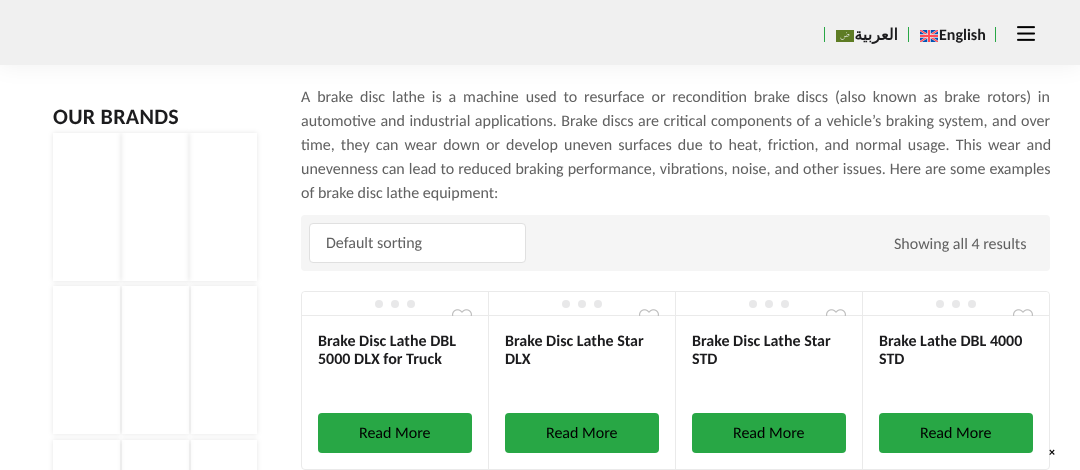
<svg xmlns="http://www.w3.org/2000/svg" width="1080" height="470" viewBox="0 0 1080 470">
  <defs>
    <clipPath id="clip1"><path d="M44 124H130V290H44ZM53 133H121V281H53Z" clip-rule="evenodd"/></clipPath>
    <clipPath id="clip2"><path d="M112 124H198V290H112ZM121 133H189V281H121Z" clip-rule="evenodd"/></clipPath>
    <clipPath id="clip3"><path d="M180 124H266V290H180ZM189 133H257V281H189Z" clip-rule="evenodd"/></clipPath>
    <clipPath id="clip4"><path d="M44 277H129V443H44ZM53 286H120V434H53Z" clip-rule="evenodd"/></clipPath>
    <clipPath id="clip5"><path d="M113 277H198V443H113ZM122 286H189V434H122Z" clip-rule="evenodd"/></clipPath>
    <clipPath id="clip6"><path d="M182 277H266V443H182ZM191 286H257V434H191Z" clip-rule="evenodd"/></clipPath>
    <clipPath id="clip7"><path d="M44 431H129V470H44ZM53 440H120V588H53Z" clip-rule="evenodd"/></clipPath>
    <clipPath id="clip8"><path d="M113 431H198V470H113ZM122 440H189V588H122Z" clip-rule="evenodd"/></clipPath>
    <clipPath id="clip9"><path d="M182 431H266V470H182ZM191 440H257V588H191Z" clip-rule="evenodd"/></clipPath>
  </defs>
  <rect width="100%" height="100%" fill="rgb(255,255,255)"/>
  <rect x="0" y="2" width="1080" height="65" fill="rgba(0,0,0,0.05)" filter="blur(10px)"/>
  <rect x="0" y="0" width="1080" height="65" fill="rgb(240,240,240)"/>
  <rect x="824" y="27" width="1" height="15" fill="rgb(40,167,69)"/>
  <image x="836" y="30" width="18" height="12" href="pic1.png"/>
  <text x="898" y="40" font-family="DejaVu Sans" font-size="16" font-weight="bold" direction="rtl" fill="rgb(28,28,30)">العربية</text>
  <rect x="908" y="27" width="1" height="15" fill="rgb(40,167,69)"/>
  <image x="920" y="30" width="18" height="12" href="pic2.png"/>
  <text x="939" y="40" font-family="Carlito" font-size="16" font-weight="bold" fill="rgb(28,28,30)">English</text>
  <rect x="995" y="27" width="1" height="15" fill="rgb(40,167,69)"/>
  <image x="1017" y="26" width="18" height="15" href="pic3.png"/>
  <text x="53" y="124" font-family="Carlito" font-size="22" font-weight="bold" letter-spacing="0.25" fill="rgb(28,28,30)">OUR BRANDS</text>
  <g clip-path="url(#clip1)">
    <rect x="53" y="133" width="68" height="148" fill="rgba(0,0,0,0.1)" filter="blur(2.5px)"/>
  </g>
  <g clip-path="url(#clip2)">
    <rect x="121" y="133" width="68" height="148" fill="rgba(0,0,0,0.1)" filter="blur(2.5px)"/>
  </g>
  <g clip-path="url(#clip3)">
    <rect x="189" y="133" width="68" height="148" fill="rgba(0,0,0,0.1)" filter="blur(2.5px)"/>
  </g>
  <g clip-path="url(#clip4)">
    <rect x="53" y="286" width="67" height="148" fill="rgba(0,0,0,0.1)" filter="blur(2.5px)"/>
  </g>
  <g clip-path="url(#clip5)">
    <rect x="122" y="286" width="67" height="148" fill="rgba(0,0,0,0.1)" filter="blur(2.5px)"/>
  </g>
  <g clip-path="url(#clip6)">
    <rect x="191" y="286" width="66" height="148" fill="rgba(0,0,0,0.1)" filter="blur(2.5px)"/>
  </g>
  <g clip-path="url(#clip7)">
    <rect x="53" y="440" width="67" height="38" fill="rgba(0,0,0,0.1)" filter="blur(2.5px)"/>
  </g>
  <g clip-path="url(#clip8)">
    <rect x="122" y="440" width="67" height="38" fill="rgba(0,0,0,0.1)" filter="blur(2.5px)"/>
  </g>
  <g clip-path="url(#clip9)">
    <rect x="191" y="440" width="66" height="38" fill="rgba(0,0,0,0.1)" filter="blur(2.5px)"/>
  </g>
  <g font-family="Carlito" font-size="16" fill="rgb(97,97,97)">
    <text>
      <tspan x="301" y="102" word-spacing="3.25">A brake disc lathe is a machine used to resurface or recondition brake discs (also known as brake rotors) in</tspan>
      <tspan x="301" y="126" word-spacing="0.9">automotive and industrial applications. Brake discs are critical components of a vehicle’s braking system, and over</tspan>
      <tspan x="301" y="150" word-spacing="2.5">time, they can wear down or develop uneven surfaces due to heat, friction, and normal usage. This wear and</tspan>
      <tspan x="301" y="174" word-spacing="0.4">unevenness can lead to reduced braking performance, vibrations, noise, and other issues. Here are some examples</tspan>
      <tspan x="301" y="198">of brake disc lathe equipment:</tspan>
    </text>
  </g>
  <rect x="301" y="215" width="749" height="56" rx="4" fill="rgb(245,245,245)"/>
  <rect x="309.5" y="223.5" width="216" height="39" rx="3.5" fill="rgb(255,255,255)" stroke="rgb(224,224,224)"/>
  <g font-family="Carlito" font-size="16" fill="rgb(97,97,97)">
    <text x="326" y="248">Default sorting</text>
    <text x="894" y="249">Showing all 4 results</text>
  </g>
  <rect x="301.5" y="291.5" width="748" height="178" rx="3.5" fill="none" stroke="rgb(234,234,234)"/>
  <path d="M305 292H488V316H302V295C302 293.5 303.5 292 305 292Z" fill="rgb(255,255,255)"/>
  <circle cx="379" cy="304" r="4" fill="rgb(232,232,233)"/>
  <circle cx="395" cy="304" r="4" fill="rgb(232,232,233)"/>
  <circle cx="411" cy="304" r="4" fill="rgb(232,232,233)"/>
  <rect x="302" y="315" width="186" height="1" fill="rgb(234,234,234)"/>
  <image x="452" y="309" width="20" height="7" href="pic4.png"/>
  <g font-family="Carlito" font-size="16" font-weight="bold" fill="rgb(28,28,30)">
    <text>
      <tspan x="318" y="346">Brake Disc Lathe DBL</tspan>
      <tspan x="318" y="364">5000 DLX for Truck</tspan>
    </text>
  </g>
  <rect x="318" y="413" width="154" height="40" rx="4" fill="rgb(40,167,69)"/>
  <text x="359" y="438" font-family="Carlito" font-size="16" fill="rgb(0,0,0)">Read More</text>
  <path d="M489 292V469H488V292ZM676 292V469H675V292Z" fill="rgb(234,234,234)" fill-rule="evenodd"/>
  <circle cx="566" cy="304" r="4" fill="rgb(232,232,233)"/>
  <circle cx="582" cy="304" r="4" fill="rgb(232,232,233)"/>
  <circle cx="598" cy="304" r="4" fill="rgb(232,232,233)"/>
  <rect x="489" y="315" width="186" height="1" fill="rgb(234,234,234)"/>
  <image x="639" y="309" width="20" height="7" href="pic4.png"/>
  <g font-family="Carlito" font-size="16" font-weight="bold" fill="rgb(28,28,30)">
    <text>
      <tspan x="505" y="346">Brake Disc Lathe Star</tspan>
      <tspan x="505" y="364">DLX</tspan>
    </text>
  </g>
  <rect x="505" y="413" width="154" height="40" rx="4" fill="rgb(40,167,69)"/>
  <text x="546" y="438" font-family="Carlito" font-size="16" fill="rgb(0,0,0)">Read More</text>
  <path d="M676 292V469H675V292ZM863 292V469H862V292Z" fill="rgb(234,234,234)" fill-rule="evenodd"/>
  <circle cx="753" cy="304" r="4" fill="rgb(232,232,233)"/>
  <circle cx="769" cy="304" r="4" fill="rgb(232,232,233)"/>
  <circle cx="785" cy="304" r="4" fill="rgb(232,232,233)"/>
  <rect x="676" y="315" width="186" height="1" fill="rgb(234,234,234)"/>
  <image x="826" y="309" width="20" height="7" href="pic4.png"/>
  <g font-family="Carlito" font-size="16" font-weight="bold" fill="rgb(28,28,30)">
    <text>
      <tspan x="692" y="346">Brake Disc Lathe Star</tspan>
      <tspan x="692" y="364">STD</tspan>
    </text>
  </g>
  <rect x="692" y="413" width="154" height="40" rx="4" fill="rgb(40,167,69)"/>
  <text x="733" y="438" font-family="Carlito" font-size="16" fill="rgb(0,0,0)">Read More</text>
  <path d="M863 292H1046C1047.5 292 1049 293.5 1049 295V316H863Z" fill="rgb(255,255,255)"/>
  <circle cx="940" cy="304" r="4" fill="rgb(232,232,233)"/>
  <circle cx="956" cy="304" r="4" fill="rgb(232,232,233)"/>
  <circle cx="972" cy="304" r="4" fill="rgb(232,232,233)"/>
  <rect x="863" y="315" width="186" height="1" fill="rgb(234,234,234)"/>
  <image x="1013" y="309" width="20" height="7" href="pic4.png"/>
  <g font-family="Carlito" font-size="16" font-weight="bold" fill="rgb(28,28,30)">
    <text>
      <tspan x="879" y="346">Brake Lathe DBL 4000</tspan>
      <tspan x="879" y="364">STD</tspan>
    </text>
  </g>
  <rect x="879" y="413" width="154" height="40" rx="4" fill="rgb(40,167,69)"/>
  <text x="920" y="438" font-family="Carlito" font-size="16" fill="rgb(0,0,0)">Read More</text>
  <text x="1049" y="456" font-family="Carlito" font-size="12" font-weight="bold" fill="rgb(0,0,0)">×</text>
</svg>
